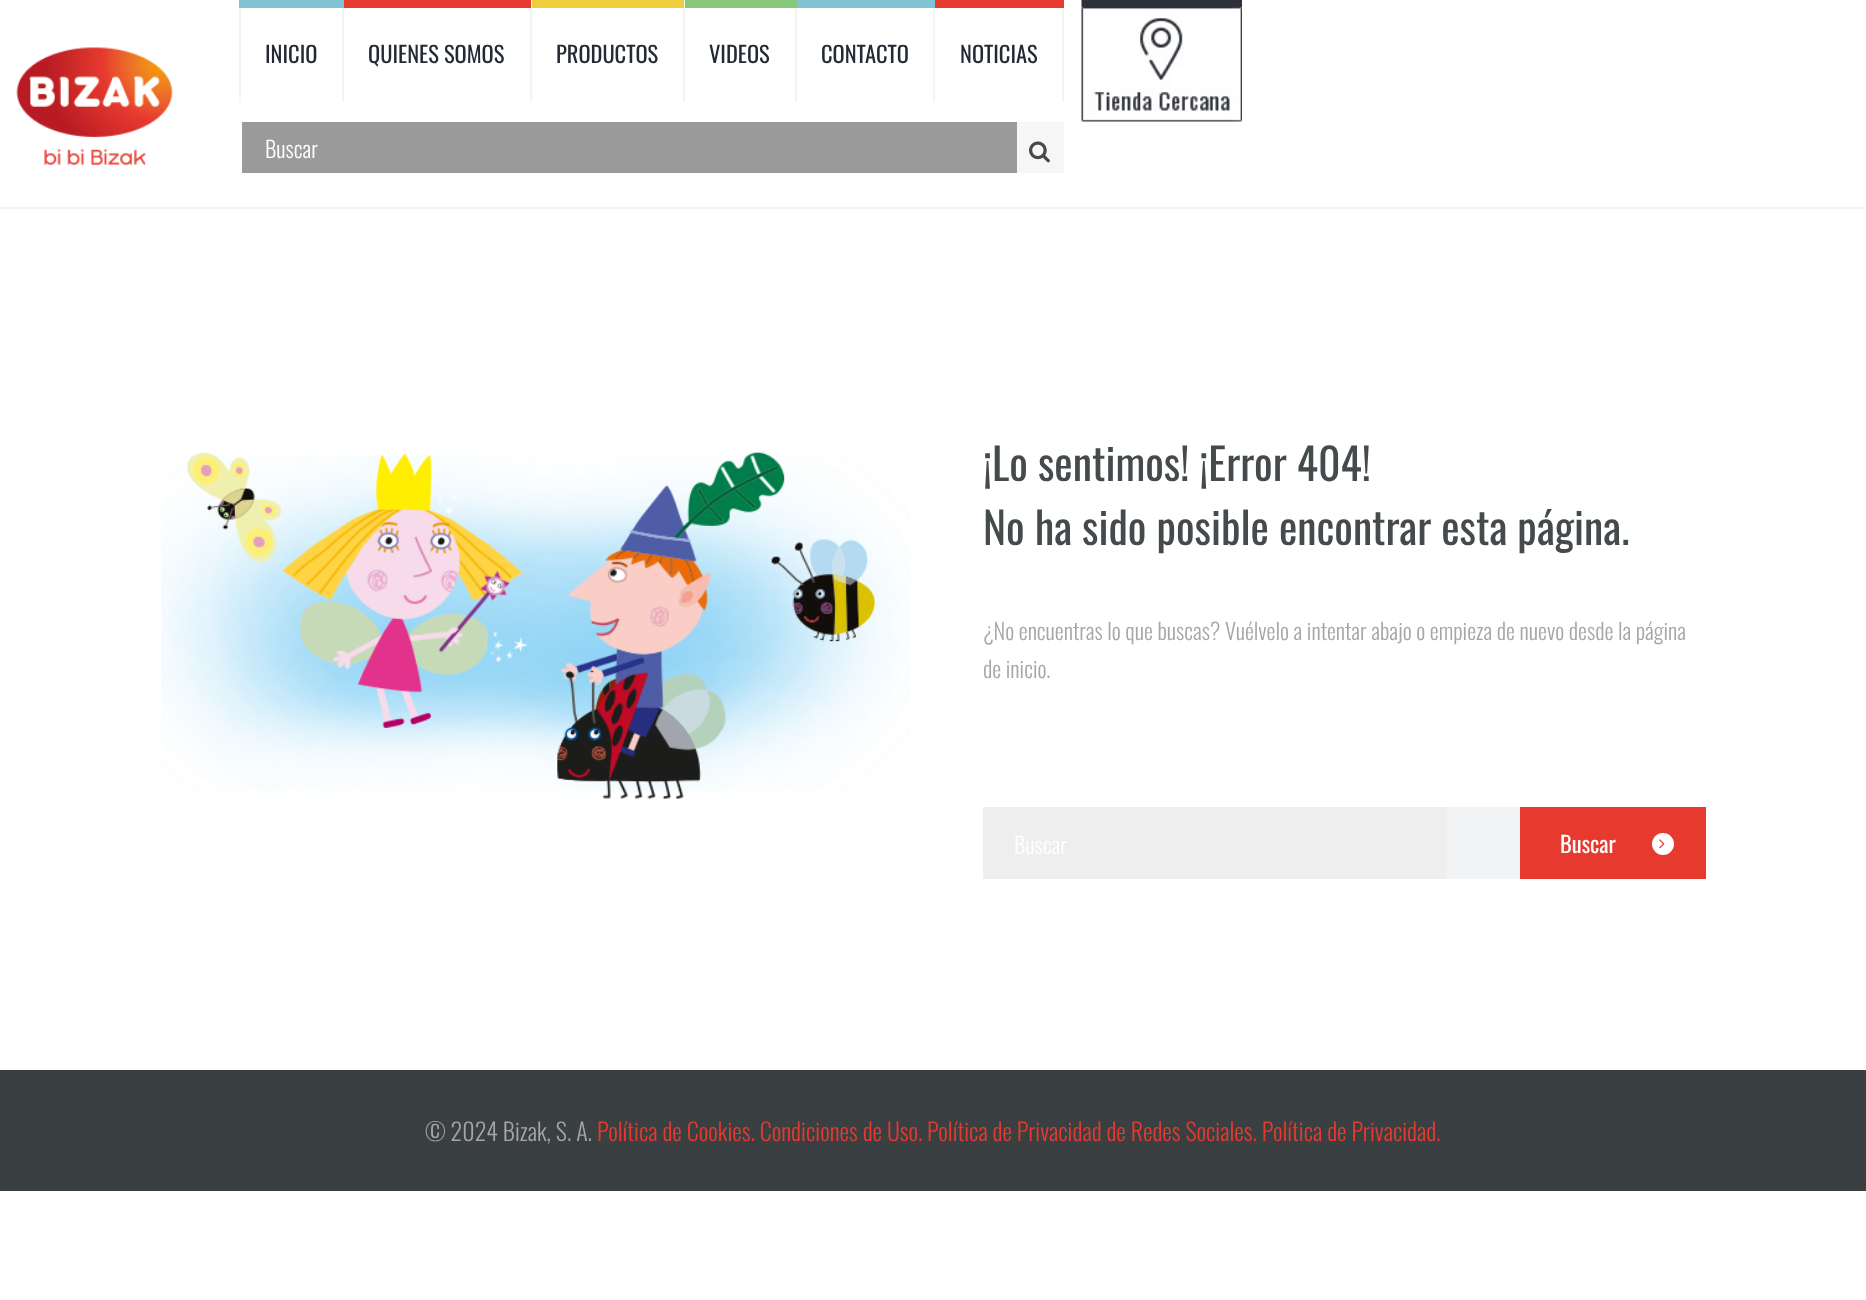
<svg xmlns="http://www.w3.org/2000/svg" width="1866" height="1300" viewBox="0 0 1866 1300">
  <rect width="100%" height="100%" fill="rgb(255,255,255)"/>
  <rect x="0" y="207" width="1866" height="2" fill="rgb(244,244,244)"/>
  <image x="16" y="47" width="157" height="118" href="pic1.png"/>
  <rect x="342" y="0" width="2" height="102" fill="rgb(244,244,244)"/>
  <rect x="239" y="0" width="2" height="102" fill="rgb(244,244,244)"/>
  <rect x="239" y="0" width="105" height="8" fill="rgb(128,195,210)"/>
  <text x="265" y="63" font-family="Oswald" font-size="22.5" fill="rgb(35,42,52)">INICIO</text>
  <rect x="795" y="0" width="2" height="102" fill="rgb(244,244,244)"/>
  <rect x="684" y="0" width="113" height="8" fill="rgb(136,200,123)"/>
  <rect x="683" y="0" width="2" height="102" fill="rgb(244,244,244)"/>
  <rect x="531" y="0" width="153" height="8" fill="rgb(240,205,58)"/>
  <rect x="530" y="0" width="2" height="102" fill="rgb(244,244,244)"/>
  <rect x="344" y="0" width="187" height="8" fill="rgb(231,58,47)"/>
  <g font-family="Oswald" font-size="22.5" fill="rgb(35,42,52)">
    <text x="368" y="63">QUIENES SOMOS</text>
    <text x="556" y="63">PRODUCTOS</text>
    <text x="709" y="63">VIDEOS</text>
  </g>
  <rect x="933" y="0" width="2" height="102" fill="rgb(244,244,244)"/>
  <rect x="797" y="0" width="138" height="8" fill="rgb(128,195,210)"/>
  <text x="821" y="63" font-family="Oswald" font-size="22.5" fill="rgb(35,42,52)">CONTACTO</text>
  <rect x="1062" y="0" width="2" height="102" fill="rgb(244,244,244)"/>
  <rect x="935" y="0" width="129" height="8" fill="rgb(231,58,47)"/>
  <text x="960" y="63" font-family="Oswald" font-size="22.5" fill="rgb(35,42,52)">NOTICIAS</text>
  <rect x="1017" y="122" width="47" height="51" fill="rgb(246,246,246)"/>
  <rect x="242" y="122" width="775" height="51" fill="rgb(154,154,154)"/>
  <text x="265" y="158" font-family="Oswald" font-size="22.5" font-weight="300" fill="rgb(255,255,255)">Buscar</text>
  <image x="1029" y="141" width="21" height="22" href="pic2.png"/>
  <image x="1081" y="0" width="161" height="122" href="pic3.png"/>
  <image x="161" y="452" width="749" height="347" href="pic4.png"/>
  <g font-family="Oswald" font-size="43.75" fill="rgb(69,74,76)">
    <text>
      <tspan x="983" y="481">¡Lo sentimos! ¡Error 404!</tspan>
      <tspan x="983" y="545">No ha sido posible encontrar esta página.</tspan>
    </text>
  </g>
  <g font-family="Oswald" font-size="22.5" font-weight="300" fill="rgb(166,166,166)">
    <text>
      <tspan x="983" y="640">¿No encuentras lo que buscas? Vuélvelo a intentar abajo o empieza de nuevo desde la página</tspan>
      <tspan x="983" y="678">de inicio.</tspan>
    </text>
  </g>
  <rect x="1446" y="807" width="74" height="72" fill="rgb(242,243,244)"/>
  <rect x="983" y="807" width="463" height="72" fill="rgb(238,238,238)"/>
  <text x="1014" y="854" font-family="Oswald" font-size="22.5" font-weight="300" fill="rgb(255,255,255)">Buscar</text>
  <rect x="1520" y="807" width="186" height="72" fill="rgb(231,58,47)"/>
  <text x="1560" y="853" font-family="Oswald" font-size="22.5" fill="rgb(255,255,255)">Buscar</text>
  <circle cx="1663" cy="844" r="11" fill="rgb(255,255,255)"/>
  <image x="1659" y="839" width="6" height="10" href="pic5.png"/>
  <rect x="0" y="1070" width="1866" height="121" fill="rgb(58,63,65)"/>
  <text x="425" y="1141" font-family="Oswald" font-size="24" font-weight="300" fill="rgb(166,166,166)">© 2024 Bizak, S. A.</text>
  <text x="597" y="1141" font-family="Oswald" font-size="24" font-weight="300" fill="rgb(231,58,47)">Política de Cookies. Condiciones de Uso. Política de Privacidad de Redes Sociales. Política de Privacidad.</text>
</svg>
